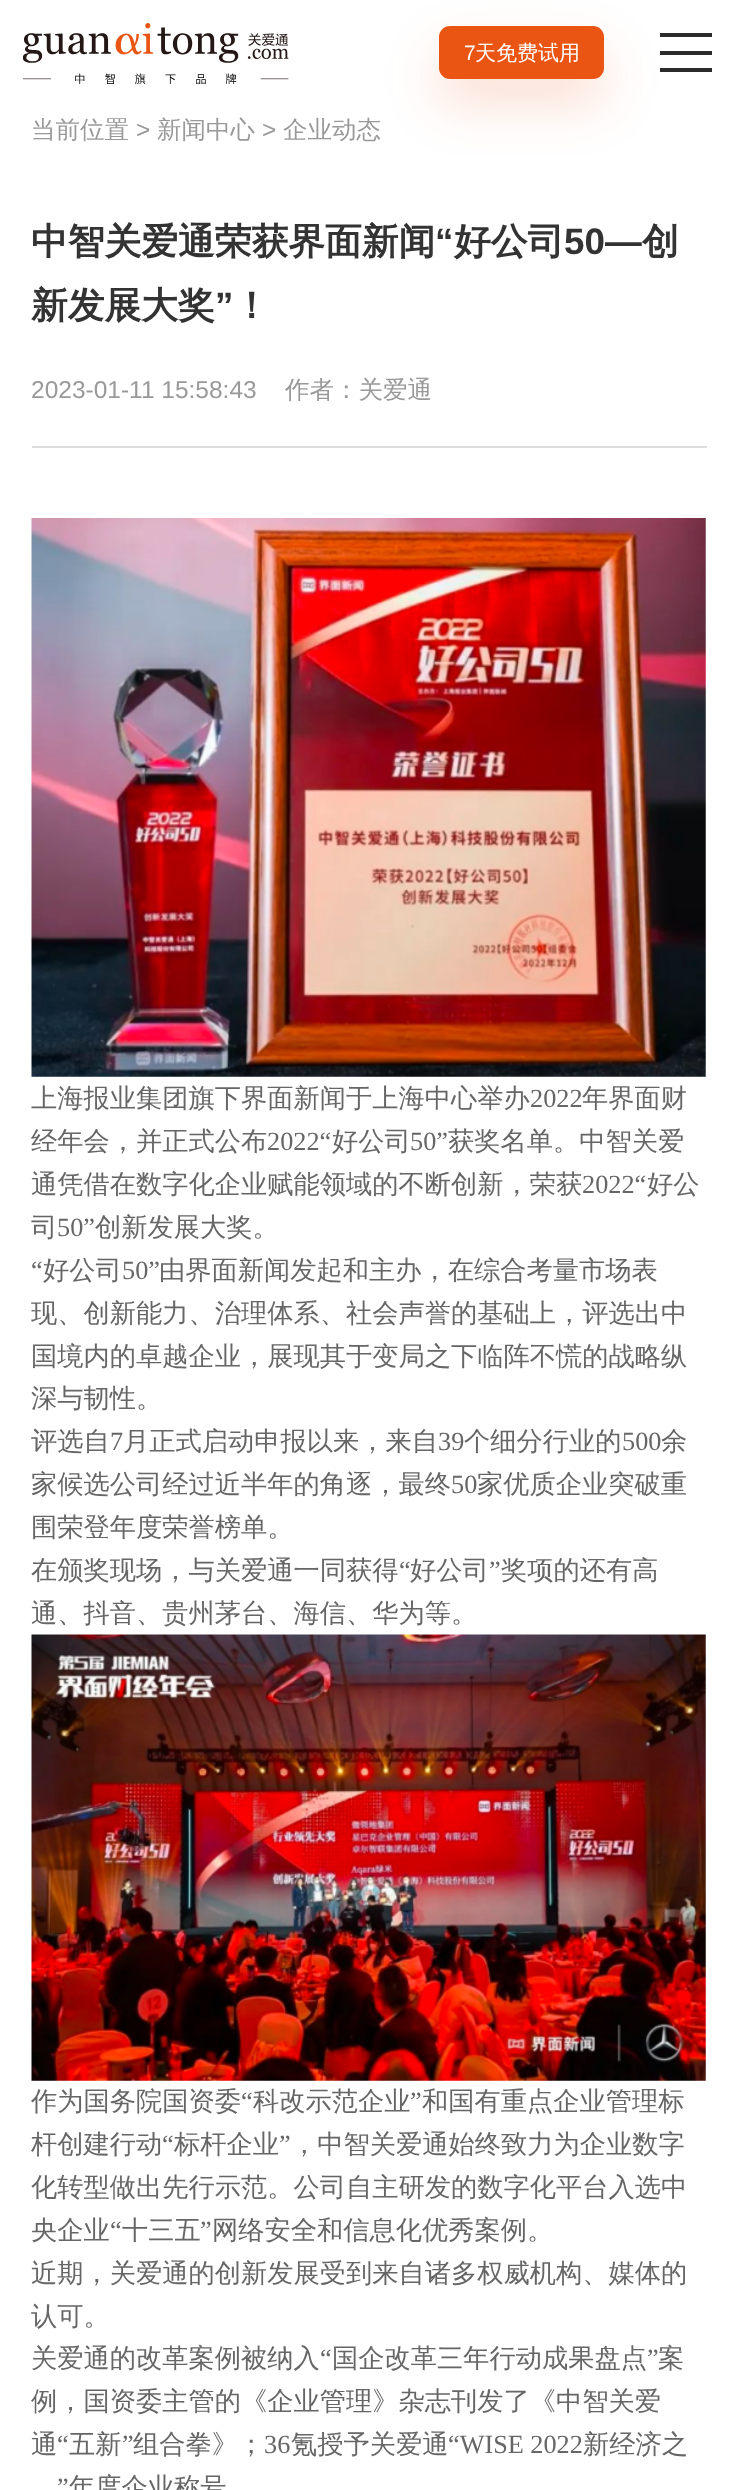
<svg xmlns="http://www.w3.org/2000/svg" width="737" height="2490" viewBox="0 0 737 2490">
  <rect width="100%" height="100%" fill="rgb(255,255,255)"/>
  <image x="23" y="23" width="266" height="61" href="pic1.png"/>
  <rect x="439" y="51" width="165" height="52" rx="11" fill="rgba(234,85,20,0.2)" filter="blur(26px)"/>
  <rect x="439" y="26" width="165" height="53" rx="11" fill="rgb(234,85,20)"/>
  <text x="464" y="60" font-family="Liberation Sans" font-size="21" fill="rgb(255,255,255)">7</text>
  <text x="475" y="60" font-family="WenQuanYi Zen Hei" font-size="21" font-weight="500" fill="rgb(255,255,255)">天免费试用</text>
  <rect x="660" y="51" width="52" height="4" fill="rgb(43,43,43)"/>
  <rect x="660" y="33" width="52" height="4" fill="rgb(43,43,43)"/>
  <rect x="660" y="68" width="52" height="4" fill="rgb(43,43,43)"/>
  <text x="31" y="138" font-family="WenQuanYi Zen Hei" font-size="24.5" font-weight="500" fill="rgb(153,153,153)">当前位置</text>
  <text x="136" y="138" font-family="Liberation Sans" font-size="24.5" fill="rgb(153,153,153)">&gt;</text>
  <text x="157" y="138" font-family="WenQuanYi Zen Hei" font-size="24.5" font-weight="500" fill="rgb(153,153,153)">新闻中心</text>
  <text x="262" y="138" font-family="Liberation Sans" font-size="24.5" fill="rgb(153,153,153)">&gt;</text>
  <text x="283" y="138" font-family="WenQuanYi Zen Hei" font-size="24.5" font-weight="500" fill="rgb(153,153,153)">企业动态</text>
  <text x="31" y="254" font-family="WenQuanYi Zen Hei" font-size="36.75" font-weight="bold" fill="rgb(51,51,51)">中智关爱通荣获界面新闻</text>
  <text x="435" y="254" font-family="Liberation Sans" font-size="36.75" font-weight="bold" fill="rgb(51,51,51)">“</text>
  <text x="454" y="254" font-family="WenQuanYi Zen Hei" font-size="36.75" font-weight="bold" fill="rgb(51,51,51)">好公司</text>
  <text x="564" y="254" font-family="Liberation Sans" font-size="36.75" font-weight="bold" fill="rgb(51,51,51)">50—</text>
  <g font-family="WenQuanYi Zen Hei" font-size="36.75" font-weight="bold" fill="rgb(51,51,51)">
    <text x="642" y="254">创</text>
    <text x="31" y="318">新发展大奖</text>
  </g>
  <text x="215" y="318" font-family="Liberation Sans" font-size="36.75" font-weight="bold" fill="rgb(51,51,51)">”</text>
  <text x="233" y="318" font-family="WenQuanYi Zen Hei" font-size="36.75" font-weight="bold" fill="rgb(51,51,51)">！</text>
  <text x="31" y="398" font-family="Liberation Sans" font-size="24.5" fill="rgb(153,153,153)">2023-01-11 15:58:43</text>
  <text x="285" y="398" font-family="WenQuanYi Zen Hei" font-size="24.5" font-weight="500" fill="rgb(153,153,153)">作者：关爱通</text>
  <rect x="32" y="446" width="675" height="2" fill="rgb(221,221,221)"/>
  <image x="31" y="518" width="675" height="559" href="pic2.png"/>
  <text x="31" y="1107" font-family="WenQuanYi Zen Hei" font-size="26.25" font-weight="500" fill="rgb(102,102,102)">上海报业集团旗下界面新闻于上海中心举办</text>
  <text x="530" y="1107" font-family="Liberation Serif" font-size="26.25" fill="rgb(102,102,102)">2022</text>
  <g font-family="WenQuanYi Zen Hei" font-size="26.25" font-weight="500" fill="rgb(102,102,102)">
    <text x="582" y="1107">年界面财</text>
    <text x="31" y="1150">经年会，并正式公布</text>
  </g>
  <text x="267" y="1150" font-family="Liberation Serif" font-size="26.25" fill="rgb(102,102,102)">2022“</text>
  <text x="332" y="1150" font-family="WenQuanYi Zen Hei" font-size="26.25" font-weight="500" fill="rgb(102,102,102)">好公司</text>
  <text x="410" y="1150" font-family="Liberation Serif" font-size="26.25" fill="rgb(102,102,102)">50”</text>
  <g font-family="WenQuanYi Zen Hei" font-size="26.25" font-weight="500" fill="rgb(102,102,102)">
    <text x="448" y="1150">获奖名单。中智关爱</text>
    <text x="31" y="1193">通凭借在数字化企业赋能领域的不断创新，荣获</text>
  </g>
  <text x="582" y="1193" font-family="Liberation Serif" font-size="26.25" fill="rgb(102,102,102)">2022“</text>
  <g font-family="WenQuanYi Zen Hei" font-size="26.25" font-weight="500" fill="rgb(102,102,102)">
    <text x="647" y="1193">好公</text>
    <text x="31" y="1236">司</text>
  </g>
  <text x="57" y="1236" font-family="Liberation Serif" font-size="26.25" fill="rgb(102,102,102)">50”</text>
  <text x="95" y="1236" font-family="WenQuanYi Zen Hei" font-size="26.25" font-weight="500" fill="rgb(102,102,102)">创新发展大奖。</text>
  <text x="31" y="1279" font-family="Liberation Serif" font-size="26.25" fill="rgb(102,102,102)">“</text>
  <text x="43" y="1279" font-family="WenQuanYi Zen Hei" font-size="26.25" font-weight="500" fill="rgb(102,102,102)">好公司</text>
  <text x="122" y="1279" font-family="Liberation Serif" font-size="26.25" fill="rgb(102,102,102)">50”</text>
  <g font-family="WenQuanYi Zen Hei" font-size="26.25" font-weight="500" fill="rgb(102,102,102)">
    <text x="159" y="1279">由界面新闻发起和主办，在综合考量市场表</text>
    <text>
      <tspan x="31" y="1322">现、创新能力、治理体系、社会声誉的基础上，评选出中</tspan>
      <tspan x="31" y="1365">国境内的卓越企业，展现其于变局之下临阵不慌的战略纵</tspan>
      <tspan x="31" y="1407">深与韧性。</tspan>
      <tspan x="31" y="1450">评选自</tspan>
    </text>
  </g>
  <text x="110" y="1450" font-family="Liberation Serif" font-size="26.25" fill="rgb(102,102,102)">7</text>
  <text x="123" y="1450" font-family="WenQuanYi Zen Hei" font-size="26.25" font-weight="500" fill="rgb(102,102,102)">月正式启动申报以来，来自</text>
  <text x="438" y="1450" font-family="Liberation Serif" font-size="26.25" fill="rgb(102,102,102)">39</text>
  <text x="464" y="1450" font-family="WenQuanYi Zen Hei" font-size="26.25" font-weight="500" fill="rgb(102,102,102)">个细分行业的</text>
  <text x="622" y="1450" font-family="Liberation Serif" font-size="26.25" fill="rgb(102,102,102)">500</text>
  <g font-family="WenQuanYi Zen Hei" font-size="26.25" font-weight="500" fill="rgb(102,102,102)">
    <text x="661" y="1450">余</text>
    <text x="31" y="1493">家候选公司经过近半年的角逐，最终</text>
  </g>
  <text x="451" y="1493" font-family="Liberation Serif" font-size="26.25" fill="rgb(102,102,102)">50</text>
  <g font-family="WenQuanYi Zen Hei" font-size="26.25" font-weight="500" fill="rgb(102,102,102)">
    <text x="477" y="1493">家优质企业突破重</text>
    <text>
      <tspan x="31" y="1536">围荣登年度荣誉榜单。</tspan>
      <tspan x="31" y="1579">在颁奖现场，与关爱通一同获得</tspan>
    </text>
  </g>
  <text x="399" y="1579" font-family="Liberation Serif" font-size="26.25" fill="rgb(102,102,102)">“</text>
  <text x="410" y="1579" font-family="WenQuanYi Zen Hei" font-size="26.25" font-weight="500" fill="rgb(102,102,102)">好公司</text>
  <text x="489" y="1579" font-family="Liberation Serif" font-size="26.25" fill="rgb(102,102,102)">”</text>
  <g font-family="WenQuanYi Zen Hei" font-size="26.25" font-weight="500" fill="rgb(102,102,102)">
    <text x="501" y="1579">奖项的还有高</text>
    <text x="31" y="1622">通、抖音、贵州茅台、海信、华为等。</text>
  </g>
  <image x="31" y="1634" width="675" height="447" href="pic3.png"/>
  <text x="31" y="2110" font-family="WenQuanYi Zen Hei" font-size="26.25" font-weight="500" fill="rgb(102,102,102)">作为国务院国资委</text>
  <text x="241" y="2110" font-family="Liberation Serif" font-size="26.25" fill="rgb(102,102,102)">“</text>
  <text x="253" y="2110" font-family="WenQuanYi Zen Hei" font-size="26.25" font-weight="500" fill="rgb(102,102,102)">科改示范企业</text>
  <text x="410" y="2110" font-family="Liberation Serif" font-size="26.25" fill="rgb(102,102,102)">”</text>
  <g font-family="WenQuanYi Zen Hei" font-size="26.25" font-weight="500" fill="rgb(102,102,102)">
    <text x="422" y="2110">和国有重点企业管理标</text>
    <text x="31" y="2153">杆创建行动</text>
  </g>
  <text x="162" y="2153" font-family="Liberation Serif" font-size="26.25" fill="rgb(102,102,102)">“</text>
  <text x="174" y="2153" font-family="WenQuanYi Zen Hei" font-size="26.25" font-weight="500" fill="rgb(102,102,102)">标杆企业</text>
  <text x="279" y="2153" font-family="Liberation Serif" font-size="26.25" fill="rgb(102,102,102)">”</text>
  <g font-family="WenQuanYi Zen Hei" font-size="26.25" font-weight="500" fill="rgb(102,102,102)">
    <text x="291" y="2153">，中智关爱通始终致力为企业数字</text>
    <text>
      <tspan x="31" y="2196">化转型做出先行示范。公司自主研发的数字化平台入选中</tspan>
      <tspan x="31" y="2239">央企业</tspan>
    </text>
  </g>
  <text x="110" y="2239" font-family="Liberation Serif" font-size="26.25" fill="rgb(102,102,102)">“</text>
  <text x="122" y="2239" font-family="WenQuanYi Zen Hei" font-size="26.25" font-weight="500" fill="rgb(102,102,102)">十三五</text>
  <text x="200" y="2239" font-family="Liberation Serif" font-size="26.25" fill="rgb(102,102,102)">”</text>
  <g font-family="WenQuanYi Zen Hei" font-size="26.25" font-weight="500" fill="rgb(102,102,102)">
    <text x="212" y="2239">网络安全和信息化优秀案例。</text>
    <text>
      <tspan x="31" y="2282">近期，关爱通的创新发展受到来自诸多权威机构、媒体的</tspan>
      <tspan x="31" y="2325">认可。</tspan>
      <tspan x="31" y="2367">关爱通的改革案例被纳入</tspan>
    </text>
  </g>
  <text x="320" y="2367" font-family="Liberation Serif" font-size="26.25" fill="rgb(102,102,102)">“</text>
  <text x="332" y="2367" font-family="WenQuanYi Zen Hei" font-size="26.25" font-weight="500" fill="rgb(102,102,102)">国企改革三年行动成果盘点</text>
  <text x="647" y="2367" font-family="Liberation Serif" font-size="26.25" fill="rgb(102,102,102)">”</text>
  <g font-family="WenQuanYi Zen Hei" font-size="26.25" font-weight="500" fill="rgb(102,102,102)">
    <text x="658" y="2367">案</text>
    <text>
      <tspan x="31" y="2410">例，国资委主管的《企业管理》杂志刊发了《中智关爱</tspan>
      <tspan x="31" y="2453">通</tspan>
    </text>
  </g>
  <text x="57" y="2453" font-family="Liberation Serif" font-size="26.25" fill="rgb(102,102,102)">“</text>
  <text x="69" y="2453" font-family="WenQuanYi Zen Hei" font-size="26.25" font-weight="500" fill="rgb(102,102,102)">五新</text>
  <text x="122" y="2453" font-family="Liberation Serif" font-size="26.25" fill="rgb(102,102,102)">”</text>
  <text x="133" y="2453" font-family="WenQuanYi Zen Hei" font-size="26.25" font-weight="500" fill="rgb(102,102,102)">组合拳》；</text>
  <text x="264" y="2453" font-family="Liberation Serif" font-size="26.25" fill="rgb(102,102,102)">36</text>
  <text x="291" y="2453" font-family="WenQuanYi Zen Hei" font-size="26.25" font-weight="500" fill="rgb(102,102,102)">氪授予关爱通</text>
  <text x="448" y="2453" font-family="Liberation Serif" font-size="26.25" fill="rgb(102,102,102)">“WISE 2022</text>
  <text x="583" y="2453" font-family="WenQuanYi Zen Hei" font-size="26.25" font-weight="500" fill="rgb(102,102,102)">新经济之</text>
  <text x="57" y="2496" font-family="Liberation Serif" font-size="26.25" fill="rgb(102,102,102)">”</text>
  <text x="69" y="2496" font-family="WenQuanYi Zen Hei" font-size="26.25" font-weight="500" fill="rgb(102,102,102)">年度企业称号</text>
</svg>
